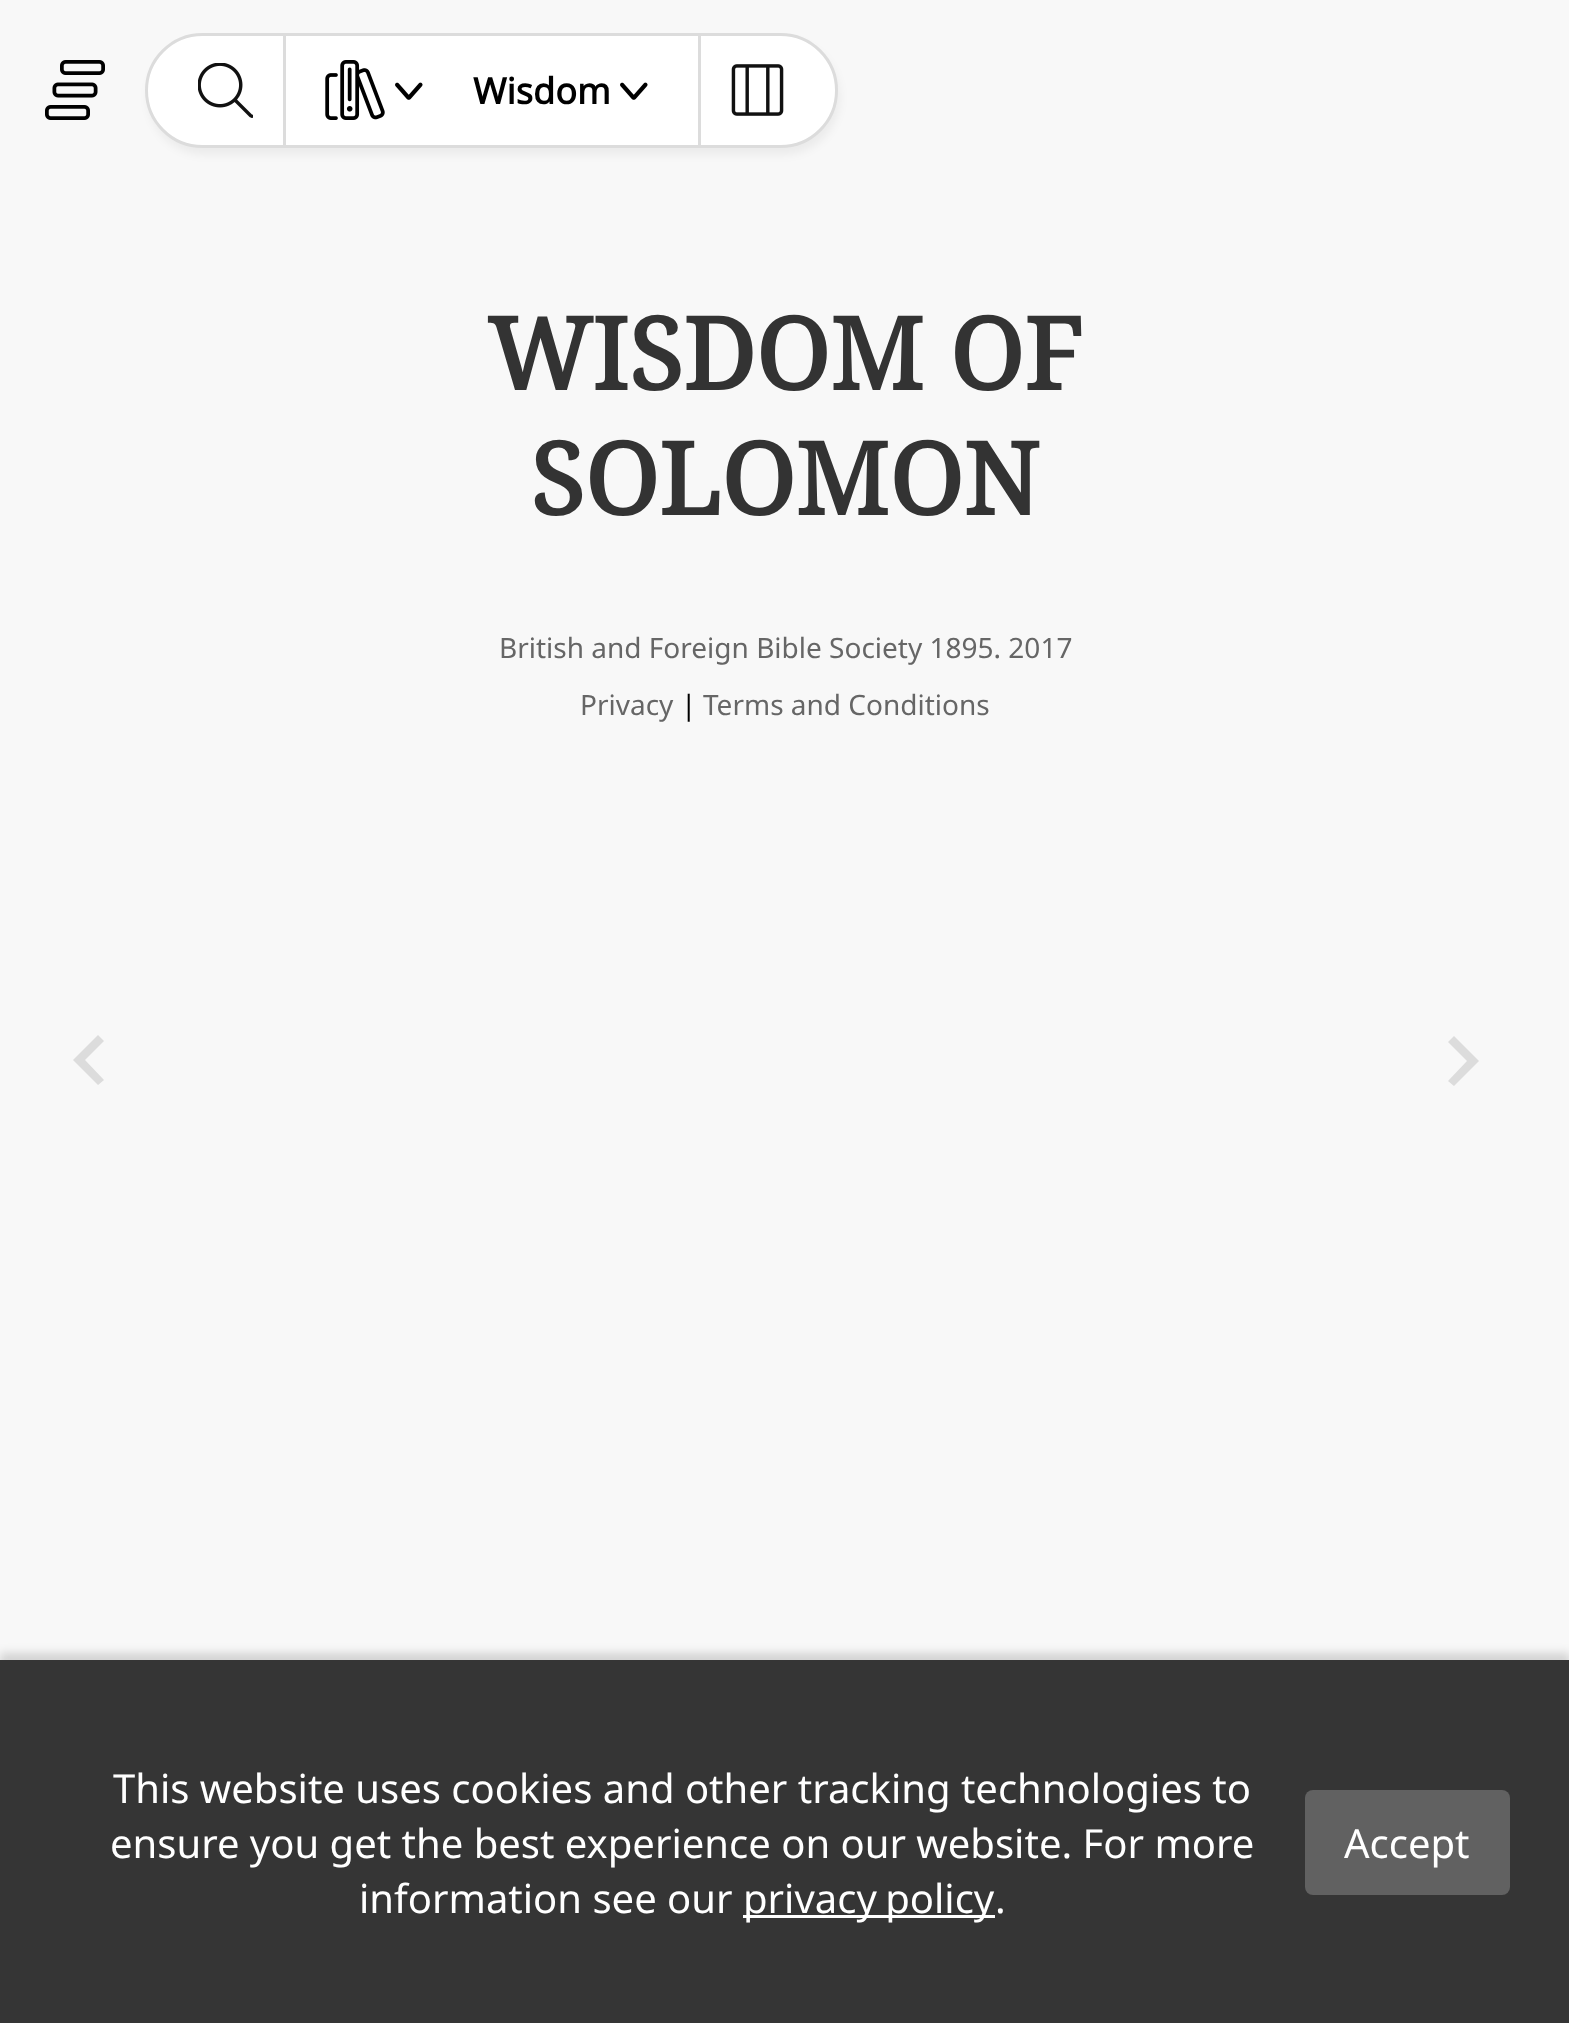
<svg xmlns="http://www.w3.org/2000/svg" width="1569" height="2023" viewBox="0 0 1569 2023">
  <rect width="100%" height="100%" fill="rgb(248,248,248)"/>
  <image x="45" y="60" width="60" height="60" href="pic1.png"/>
  <rect x="148" y="40" width="692" height="115" rx="57.5" fill="rgba(0,0,0,0.05)" filter="blur(4px)"/>
  <rect x="146.5" y="34.5" width="690" height="112" rx="56" fill="rgb(255,255,255)" stroke="rgb(220,220,220)" stroke-width="3"/>
  <rect x="283" y="35" width="3" height="110" fill="rgb(220,220,220)"/>
  <image x="198" y="63" width="55" height="55" href="pic2.png"/>
  <image x="325" y="60" width="60" height="60" href="pic3.png"/>
  <image x="395" y="82" width="28" height="18" href="pic4.png"/>
  <text x="473" y="104" font-family="Noto Sans" font-size="36" font-weight="bold" fill="rgb(0,0,0)">Wisdom</text>
  <image x="620" y="82" width="28" height="18" href="pic4.png"/>
  <rect x="698" y="35" width="3" height="110" fill="rgb(220,220,220)"/>
  <image x="731" y="64" width="53" height="52" href="pic5.png"/>
  <g font-family="Noto Serif" font-size="100" font-weight="bold" fill="rgb(51,51,51)">
    <text x="487" y="390">WISDOM OF</text>
    <text x="530" y="515">SOLOMON</text>
  </g>
  <g font-family="Noto Sans" font-size="28" fill="rgb(102,102,102)">
    <text x="499" y="658">British and Foreign Bible Society 1895. 2017</text>
    <text x="580" y="715">Privacy</text>
  </g>
  <text x="681" y="715" font-family="Noto Sans" font-size="28" fill="rgb(0,0,0)">|</text>
  <text x="703" y="715" font-family="Noto Sans" font-size="28" fill="rgb(102,102,102)">Terms and Conditions</text>
  <path d="M104 1080L85 1060L104 1041L98 1035L73 1060L98 1085Z" fill="rgb(220,220,220)"/>
  <path d="M1448 1081L1467 1061L1448 1042L1454 1036L1479 1061L1454 1086Z" fill="rgb(220,220,220)"/>
  <rect x="0" y="1653" width="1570" height="365" fill="rgba(0,0,0,0.15)" filter="blur(5px)"/>
  <rect x="0" y="1660" width="1569" height="363" fill="rgb(53,53,53)"/>
  <g font-family="Noto Sans" font-size="40" fill="rgb(255,255,255)">
    <text x="113" y="1803">This website uses cookies and other tracking technologies to</text>
    <text x="110" y="1858">ensure you get the best experience on our website. For more</text>
    <text x="359" y="1913">information see our</text>
  </g>
  <rect x="743" y="1915" width="252" height="3" fill="rgb(255,255,255)"/>
  <g font-family="Noto Sans" font-size="40" fill="rgb(255,255,255)">
    <text x="743" y="1913" word-spacing="-2">privacy policy</text>
    <text x="995" y="1913">.</text>
  </g>
  <rect x="1305" y="1790" width="205" height="105" rx="8" fill="rgb(97,97,97)"/>
  <text x="1344" y="1858" font-family="Noto Sans" font-size="40" fill="rgb(255,255,255)">Accept</text>
</svg>
